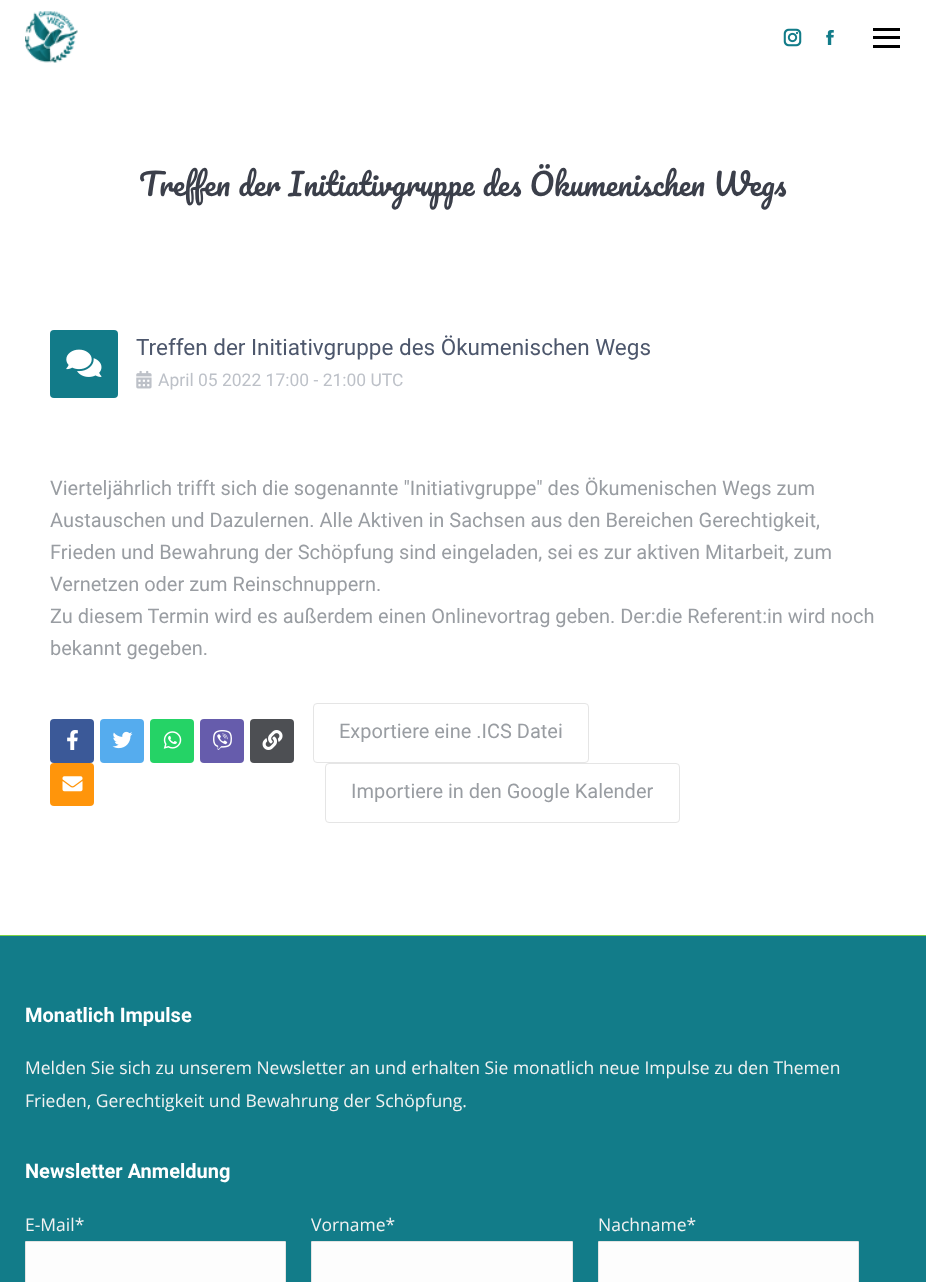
<svg xmlns="http://www.w3.org/2000/svg" width="926" height="1282" viewBox="0 0 926 1282">
  <rect width="100%" height="100%" fill="rgb(255,255,255)"/>
  <image x="25" y="11" width="53" height="52" href="pic1.png"/>
  <image x="783" y="28" width="19" height="19" href="pic2.png"/>
  <image x="826" y="30" width="8" height="15" href="pic3.png"/>
  <rect x="873" y="28" width="27" height="3" fill="rgb(0,0,0)"/>
  <rect x="873" y="36" width="27" height="3" fill="rgb(0,0,0)"/>
  <rect x="873" y="45" width="27" height="3" fill="rgb(0,0,0)"/>
  <text x="139" y="196" font-family="Pacifico" font-size="30" fill="rgb(59,63,74)">Treffen der Initiativgruppe des Ökumenischen Wegs</text>
  <rect x="50" y="330" width="68" height="68" rx="4" fill="rgb(18,123,137)"/>
  <image x="66" y="349" width="36" height="28" href="pic4.png"/>
  <text x="136" y="355" font-family="Roboto" font-size="22.5" fill="rgb(77,87,108)">Treffen der Initiativgruppe des Ökumenischen Wegs</text>
  <image x="136" y="370" width="16" height="19" href="pic5.png"/>
  <text x="158" y="386" font-family="Roboto" font-size="17.5" fill="rgb(189,193,200)">April 05 2022 17:00 - 21:00 UTC</text>
  <g font-family="Roboto" font-size="20" fill="rgb(153,157,162)">
    <text>
      <tspan x="50" y="495">Vierteljährlich trifft sich die sogenannte "Initiativgruppe" des Ökumenischen Wegs zum</tspan>
      <tspan x="50" y="527">Austauschen und Dazulernen. Alle Aktiven in Sachsen aus den Bereichen Gerechtigkeit,</tspan>
      <tspan x="50" y="559">Frieden und Bewahrung der Schöpfung sind eingeladen, sei es zur aktiven Mitarbeit, zum</tspan>
      <tspan x="50" y="591">Vernetzen oder zum Reinschnuppern.</tspan>
      <tspan x="50" y="623">Zu diesem Termin wird es außerdem einen Onlinevortrag geben. Der:die Referent:in wird noch</tspan>
      <tspan x="50" y="655">bekannt gegeben.</tspan>
    </text>
  </g>
  <rect x="50" y="719" width="44" height="44" rx="4" fill="rgb(59,89,152)"/>
  <image x="67" y="730" width="11" height="20" href="pic6.png"/>
  <rect x="100" y="719" width="44" height="44" rx="4" fill="rgb(85,172,238)"/>
  <image x="112" y="731" width="21" height="18" href="pic7.png"/>
  <rect x="150" y="719" width="44" height="44" rx="4" fill="rgb(37,211,102)"/>
  <image x="163" y="731" width="19" height="18" href="pic8.png"/>
  <rect x="200" y="719" width="44" height="44" rx="4" fill="rgb(102,92,172)"/>
  <image x="213" y="730" width="19" height="20" href="pic9.png"/>
  <rect x="250" y="719" width="44" height="44" rx="4" fill="rgb(77,79,83)"/>
  <image x="262" y="730" width="21" height="20" href="pic10.png"/>
  <rect x="50" y="763" width="44" height="43" rx="4" fill="rgb(255,149,11)"/>
  <image x="62" y="776" width="21" height="16" href="pic11.png"/>
  <rect x="313.5" y="703.5" width="275" height="59" rx="3.5" fill="none" stroke="rgb(229,229,229)"/>
  <text x="339" y="738" font-family="Roboto" font-size="20" fill="rgb(153,157,162)">Exportiere eine .ICS Datei</text>
  <rect x="325.5" y="763.5" width="354" height="59" rx="3.5" fill="none" stroke="rgb(229,229,229)"/>
  <text x="351" y="798" font-family="Roboto" font-size="20" fill="rgb(153,157,162)">Importiere in den Google Kalender</text>
  <rect x="0" y="936" width="926" height="346" fill="rgb(18,124,137)"/>
  <rect x="0" y="935" width="926" height="1" fill="rgb(125,211,69)"/>
  <text x="25" y="1022" font-family="Roboto" font-size="20" font-weight="bold" fill="rgb(255,255,255)">Monatlich Impulse</text>
  <g font-family="Open Sans" font-size="17.5" fill="rgb(242,242,242)">
    <text>
      <tspan x="25" y="1074">Melden Sie sich zu unserem Newsletter an und erhalten Sie monatlich neue Impulse zu den Themen</tspan>
      <tspan x="25" y="1107">Frieden, Gerechtigkeit und Bewahrung der Schöpfung.</tspan>
    </text>
  </g>
  <text x="25" y="1178" font-family="Roboto" font-size="20" font-weight="bold" fill="rgb(255,255,255)">Newsletter Anmeldung</text>
  <text x="25" y="1231" font-family="Open Sans" font-size="17.5" fill="rgb(242,242,242)">E-Mail*</text>
  <rect x="25" y="1241" width="261" height="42" rx="1" fill="rgb(253,253,253)"/>
  <rect x="25.5" y="1241.5" width="260" height="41" fill="none" stroke="rgba(51,51,51,0.12)"/>
  <text x="311" y="1231" font-family="Open Sans" font-size="17.5" fill="rgb(242,242,242)">Vorname*</text>
  <rect x="311" y="1241" width="262" height="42" rx="1" fill="rgb(253,253,253)"/>
  <rect x="311.5" y="1241.5" width="261" height="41" fill="none" stroke="rgba(51,51,51,0.12)"/>
  <text x="598" y="1231" font-family="Open Sans" font-size="17.5" fill="rgb(242,242,242)">Nachname*</text>
  <rect x="598" y="1241" width="261" height="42" rx="1" fill="rgb(253,253,253)"/>
  <rect x="598.5" y="1241.5" width="260" height="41" fill="none" stroke="rgba(51,51,51,0.12)"/>
</svg>
